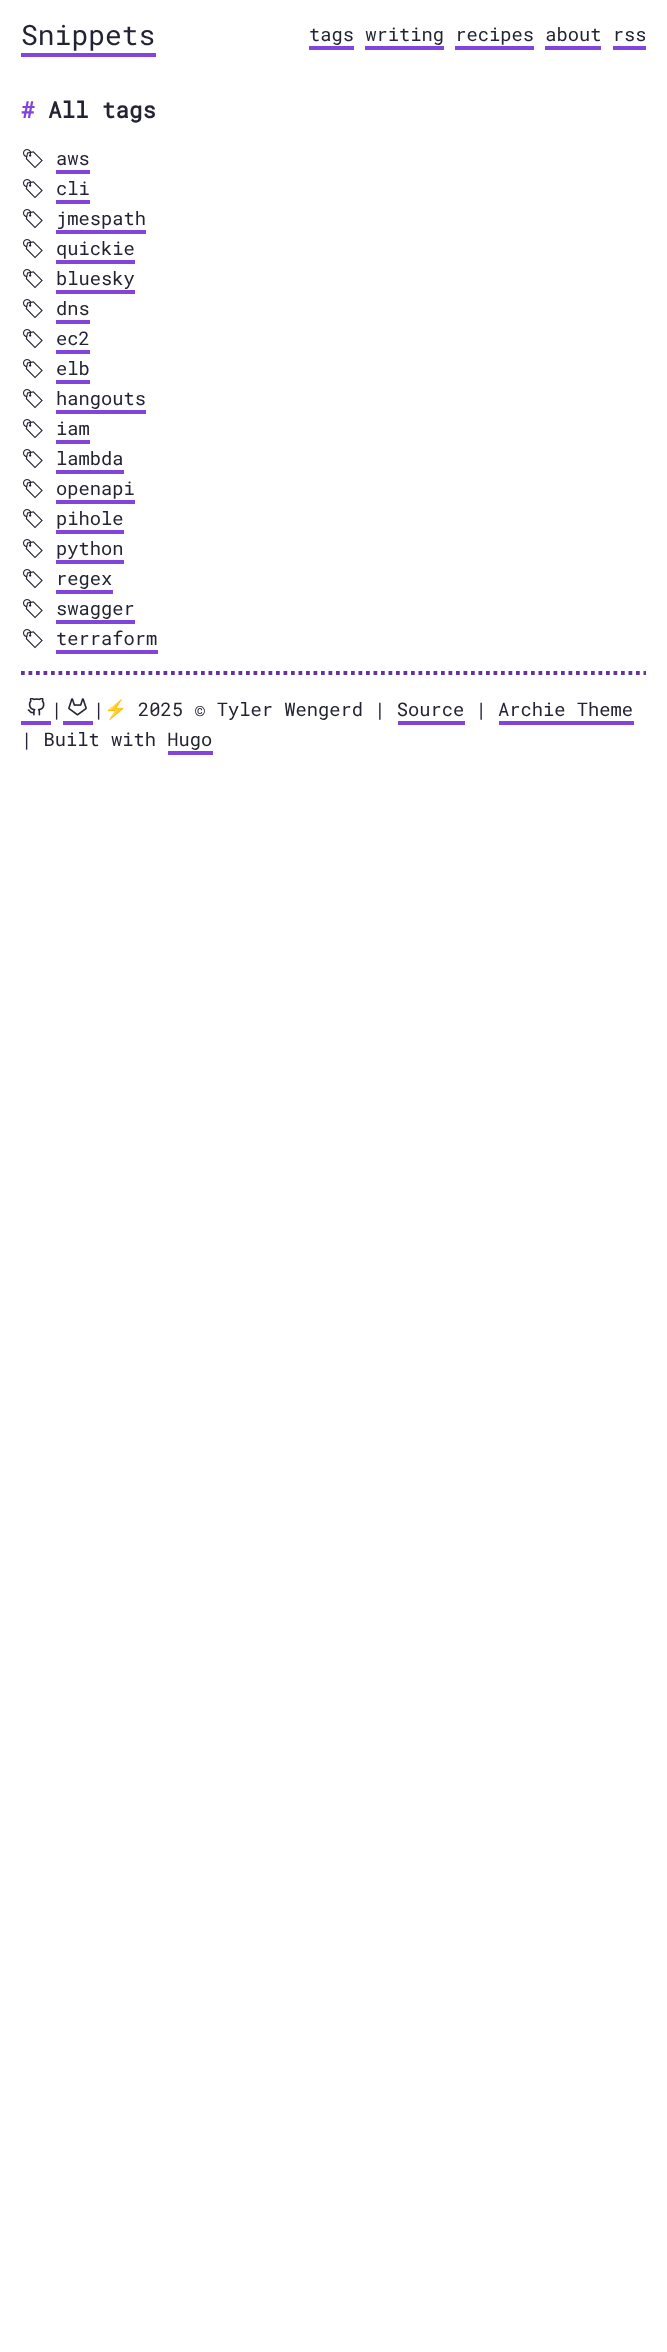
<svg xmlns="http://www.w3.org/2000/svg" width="667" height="2352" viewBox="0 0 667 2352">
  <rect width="100%" height="100%" fill="rgb(255,255,255)"/>
  <text x="21" y="45" font-family="Roboto Mono" font-size="28" fill="rgb(35,35,51)">Snippets</text>
  <rect x="21" y="53" width="135" height="4" fill="rgb(130,68,219)"/>
  <text x="309" y="41" font-family="Roboto Mono" font-size="18.75" fill="rgb(35,35,51)">tags writing recipes about rss</text>
  <rect x="309" y="46" width="45" height="4" fill="rgb(130,68,219)"/>
  <rect x="365" y="46" width="79" height="4" fill="rgb(130,68,219)"/>
  <rect x="455" y="46" width="79" height="4" fill="rgb(130,68,219)"/>
  <rect x="545" y="46" width="56" height="4" fill="rgb(130,68,219)"/>
  <rect x="613" y="46" width="33" height="4" fill="rgb(130,68,219)"/>
  <text x="21" y="118" font-family="Roboto Mono" font-size="22.5" font-weight="bold" fill="rgb(130,68,219)">#</text>
  <text x="48" y="118" font-family="Roboto Mono" font-size="22.5" font-weight="bold" fill="rgb(35,35,51)">All tags</text>
  <text x="21" y="165" font-family="Noto Emoji" font-size="18.75" font-weight="bold" fill="rgb(35,35,51)">🏷</text>
  <text x="56" y="165" font-family="Roboto Mono" font-size="18.75" fill="rgb(35,35,51)">aws</text>
  <rect x="56" y="170" width="34" height="4" fill="rgb(130,68,219)"/>
  <text x="21" y="195" font-family="Noto Emoji" font-size="18.75" font-weight="bold" fill="rgb(35,35,51)">🏷</text>
  <text x="56" y="195" font-family="Roboto Mono" font-size="18.75" fill="rgb(35,35,51)">cli</text>
  <rect x="56" y="200" width="34" height="4" fill="rgb(130,68,219)"/>
  <text x="21" y="225" font-family="Noto Emoji" font-size="18.75" font-weight="bold" fill="rgb(35,35,51)">🏷</text>
  <text x="56" y="225" font-family="Roboto Mono" font-size="18.75" fill="rgb(35,35,51)">jmespath</text>
  <rect x="56" y="230" width="90" height="4" fill="rgb(130,68,219)"/>
  <text x="21" y="255" font-family="Noto Emoji" font-size="18.75" font-weight="bold" fill="rgb(35,35,51)">🏷</text>
  <text x="56" y="255" font-family="Roboto Mono" font-size="18.75" fill="rgb(35,35,51)">quickie</text>
  <rect x="56" y="260" width="79" height="4" fill="rgb(130,68,219)"/>
  <text x="21" y="285" font-family="Noto Emoji" font-size="18.75" font-weight="bold" fill="rgb(35,35,51)">🏷</text>
  <text x="56" y="285" font-family="Roboto Mono" font-size="18.75" fill="rgb(35,35,51)">bluesky</text>
  <rect x="56" y="290" width="79" height="4" fill="rgb(130,68,219)"/>
  <text x="21" y="315" font-family="Noto Emoji" font-size="18.75" font-weight="bold" fill="rgb(35,35,51)">🏷</text>
  <text x="56" y="315" font-family="Roboto Mono" font-size="18.75" fill="rgb(35,35,51)">dns</text>
  <rect x="56" y="320" width="34" height="4" fill="rgb(130,68,219)"/>
  <text x="21" y="345" font-family="Noto Emoji" font-size="18.75" font-weight="bold" fill="rgb(35,35,51)">🏷</text>
  <text x="56" y="345" font-family="Roboto Mono" font-size="18.75" fill="rgb(35,35,51)">ec2</text>
  <rect x="56" y="350" width="34" height="4" fill="rgb(130,68,219)"/>
  <text x="21" y="375" font-family="Noto Emoji" font-size="18.75" font-weight="bold" fill="rgb(35,35,51)">🏷</text>
  <text x="56" y="375" font-family="Roboto Mono" font-size="18.75" fill="rgb(35,35,51)">elb</text>
  <rect x="56" y="380" width="34" height="4" fill="rgb(130,68,219)"/>
  <text x="21" y="405" font-family="Noto Emoji" font-size="18.75" font-weight="bold" fill="rgb(35,35,51)">🏷</text>
  <text x="56" y="405" font-family="Roboto Mono" font-size="18.75" fill="rgb(35,35,51)">hangouts</text>
  <rect x="56" y="410" width="90" height="4" fill="rgb(130,68,219)"/>
  <text x="21" y="435" font-family="Noto Emoji" font-size="18.75" font-weight="bold" fill="rgb(35,35,51)">🏷</text>
  <text x="56" y="435" font-family="Roboto Mono" font-size="18.75" fill="rgb(35,35,51)">iam</text>
  <rect x="56" y="440" width="34" height="4" fill="rgb(130,68,219)"/>
  <text x="21" y="465" font-family="Noto Emoji" font-size="18.75" font-weight="bold" fill="rgb(35,35,51)">🏷</text>
  <text x="56" y="465" font-family="Roboto Mono" font-size="18.75" fill="rgb(35,35,51)">lambda</text>
  <rect x="56" y="470" width="68" height="4" fill="rgb(130,68,219)"/>
  <text x="21" y="495" font-family="Noto Emoji" font-size="18.75" font-weight="bold" fill="rgb(35,35,51)">🏷</text>
  <text x="56" y="495" font-family="Roboto Mono" font-size="18.75" fill="rgb(35,35,51)">openapi</text>
  <rect x="56" y="500" width="79" height="4" fill="rgb(130,68,219)"/>
  <text x="21" y="525" font-family="Noto Emoji" font-size="18.75" font-weight="bold" fill="rgb(35,35,51)">🏷</text>
  <text x="56" y="525" font-family="Roboto Mono" font-size="18.75" fill="rgb(35,35,51)">pihole</text>
  <rect x="56" y="530" width="68" height="4" fill="rgb(130,68,219)"/>
  <text x="21" y="555" font-family="Noto Emoji" font-size="18.75" font-weight="bold" fill="rgb(35,35,51)">🏷</text>
  <text x="56" y="555" font-family="Roboto Mono" font-size="18.75" fill="rgb(35,35,51)">python</text>
  <rect x="56" y="560" width="68" height="4" fill="rgb(130,68,219)"/>
  <text x="21" y="585" font-family="Noto Emoji" font-size="18.75" font-weight="bold" fill="rgb(35,35,51)">🏷</text>
  <text x="56" y="585" font-family="Roboto Mono" font-size="18.75" fill="rgb(35,35,51)">regex</text>
  <rect x="56" y="590" width="57" height="4" fill="rgb(130,68,219)"/>
  <text x="21" y="615" font-family="Noto Emoji" font-size="18.75" font-weight="bold" fill="rgb(35,35,51)">🏷</text>
  <text x="56" y="615" font-family="Roboto Mono" font-size="18.75" fill="rgb(35,35,51)">swagger</text>
  <rect x="56" y="620" width="79" height="4" fill="rgb(130,68,219)"/>
  <text x="21" y="645" font-family="Noto Emoji" font-size="18.75" font-weight="bold" fill="rgb(35,35,51)">🏷</text>
  <text x="56" y="645" font-family="Roboto Mono" font-size="18.75" fill="rgb(35,35,51)">terraform</text>
  <rect x="56" y="650" width="102" height="4" fill="rgb(130,68,219)"/>
  <path d="M21 673H646" fill="none" stroke="rgb(102,51,153)" stroke-width="3.8" stroke-dasharray="3.75 3.75"/>
  <image x="27" y="698" width="18" height="18" href="pic1.png"/>
  <text x="51" y="716" font-family="Roboto Mono" font-size="18.75" fill="rgb(35,35,51)">|</text>
  <image x="68" y="698" width="19" height="18" href="pic2.png"/>
  <text x="93" y="716" font-family="Roboto Mono" font-size="18.75" fill="rgb(35,35,51)">|</text>
  <text x="104" y="716" font-family="Noto Color Emoji" font-size="18.75" fill="rgb(35,35,51)">⚡️</text>
  <text x="138" y="716" font-family="Roboto Mono" font-size="18.75" fill="rgb(35,35,51)">2025 © Tyler Wengerd | Source | Archie Theme</text>
  <rect x="21" y="721" width="30" height="4" fill="rgb(130,68,219)"/>
  <rect x="63" y="721" width="30" height="4" fill="rgb(130,68,219)"/>
  <rect x="398" y="721" width="67" height="4" fill="rgb(130,68,219)"/>
  <rect x="499" y="721" width="135" height="4" fill="rgb(130,68,219)"/>
  <text x="21" y="746" font-family="Roboto Mono" font-size="18.75" fill="rgb(35,35,51)">| Built with Hugo</text>
  <rect x="168" y="751" width="45" height="4" fill="rgb(130,68,219)"/>
</svg>
